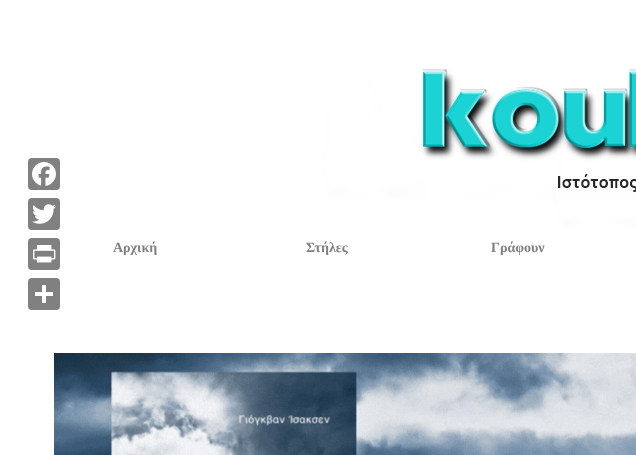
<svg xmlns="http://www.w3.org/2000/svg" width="636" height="455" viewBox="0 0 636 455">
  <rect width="100%" height="100%" fill="rgb(255,255,255)"/>
  <image x="40" y="10" width="596" height="218" href="pic4.png"/>
  <rect x="28" y="158" width="32" height="32" rx="4" fill="rgb(128,128,128)"/>
  <image x="32" y="162" width="24" height="24" href="pic1.png"/>
  <rect x="28" y="198" width="32" height="32" rx="4" fill="rgb(128,128,128)"/>
  <image x="32" y="204" width="24" height="20" href="pic2.png"/>
  <rect x="28" y="238" width="32" height="32" rx="4" fill="rgb(128,128,128)"/>
  <image x="33" y="245" width="23" height="18" href="pic3.png"/>
  <rect x="28" y="278" width="32" height="32" rx="4" fill="rgb(128,128,128)"/>
  <rect x="42" y="285" width="4" height="18" fill="rgb(255,255,255)"/>
  <rect x="35" y="292" width="18" height="4" fill="rgb(255,255,255)"/>
  <g font-family="Liberation Serif" font-size="14" font-weight="bold" fill="rgb(128,128,128)">
    <text x="113" y="252">Αρχική</text>
    <text x="306" y="252">Στήλες</text>
    <text x="491" y="252">Γράφουν</text>
  </g>
  <image x="54" y="353" width="582" height="102" href="pic5.png"/>
</svg>
